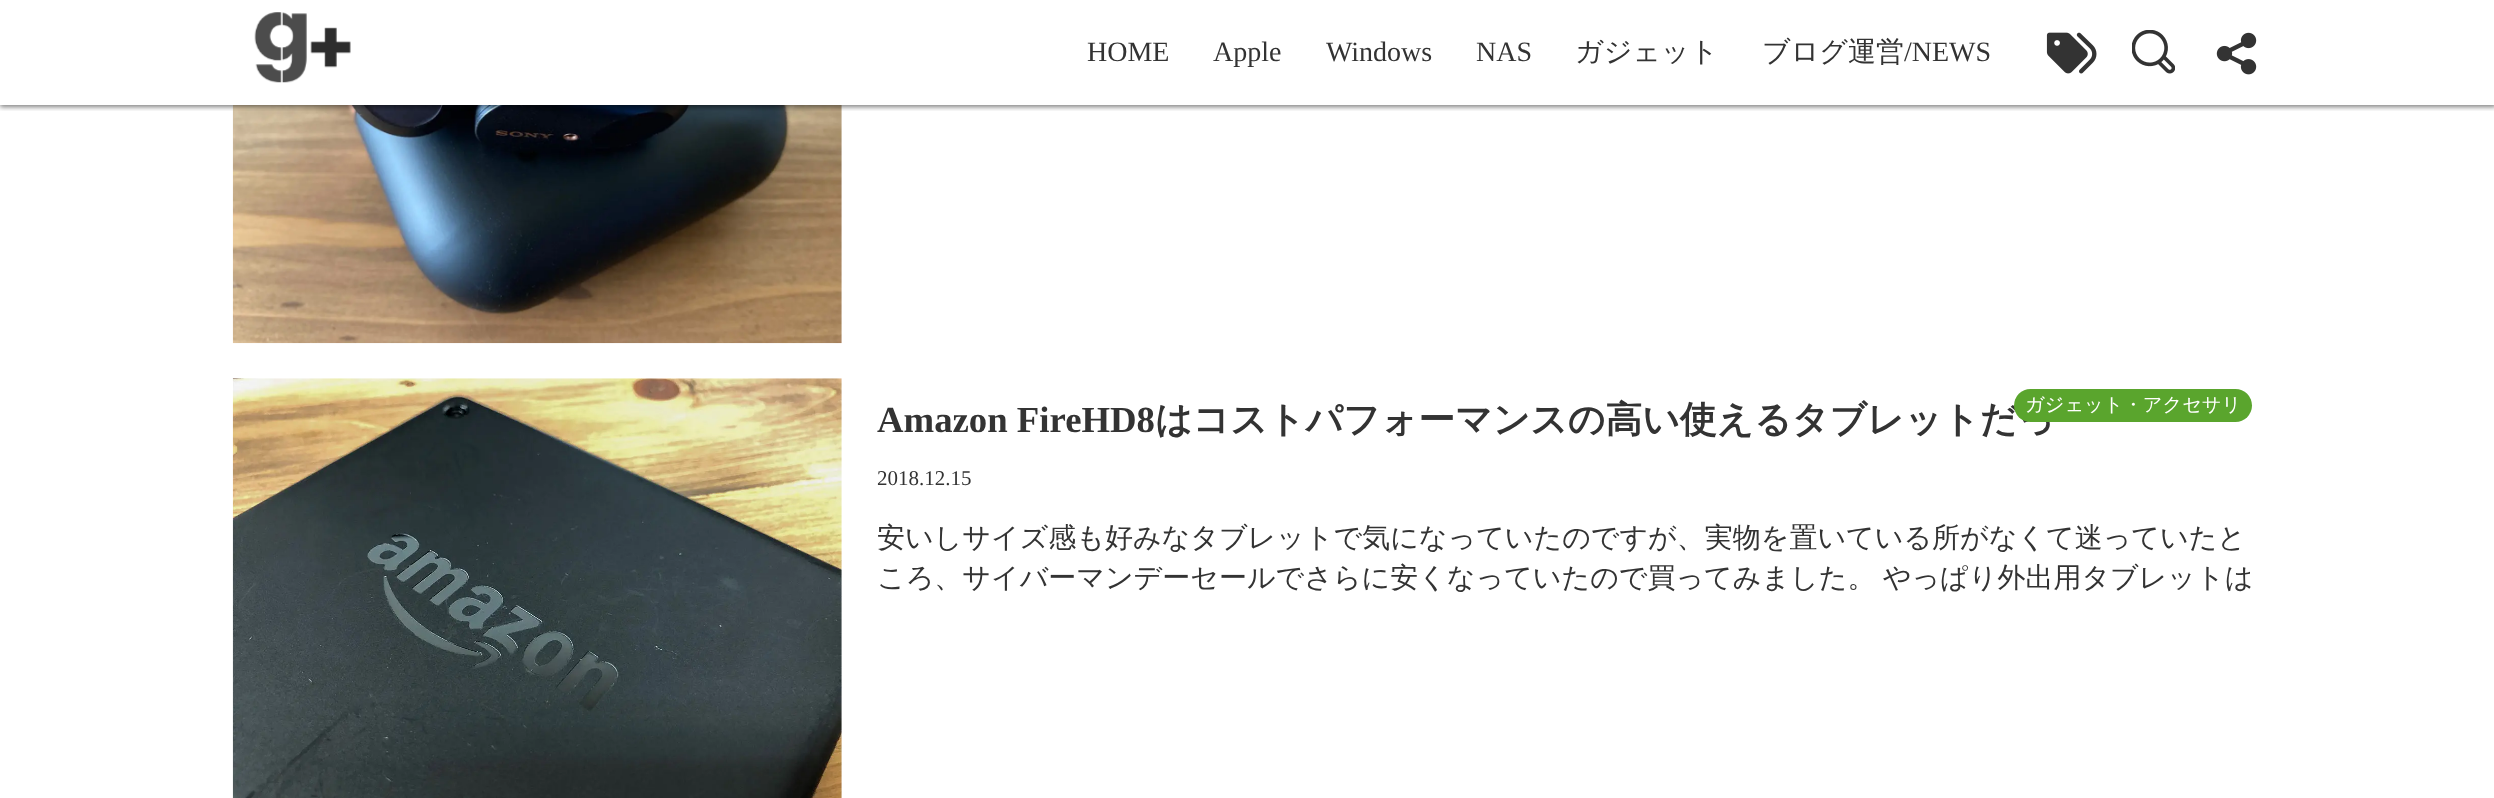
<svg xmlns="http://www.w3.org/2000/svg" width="2494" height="798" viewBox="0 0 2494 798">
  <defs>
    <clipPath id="clip1"><rect x="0" y="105" width="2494" height="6"/></clipPath>
  </defs>
  <rect width="100%" height="100%" fill="rgb(255,255,255)"/>
  <image x="232" y="105" width="610" height="239" href="pic5.png"/>
  <g clip-path="url(#clip1)">
    <rect x="0" y="2" width="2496" height="105" fill="rgba(0,0,0,0.5)" filter="blur(2.5px)"/>
  </g>
  <image x="254" y="12" width="97" height="71" href="pic1.png"/>
  <g font-family="Liberation Serif" font-size="28" fill="rgb(51,51,51)">
    <text x="1087" y="61">HOME</text>
    <text x="1213" y="61">Apple</text>
    <text x="1326" y="61">Windows</text>
    <text x="1476" y="61">NAS</text>
  </g>
  <g font-family="WenQuanYi Zen Hei" font-size="28" font-weight="500" fill="rgb(51,51,51)">
    <text x="1575" y="61">ガジェット</text>
    <text x="1762" y="61">ブログ運営</text>
  </g>
  <text x="1904" y="61" font-family="Liberation Serif" font-size="28" fill="rgb(51,51,51)">/NEWS</text>
  <image x="2046" y="32" width="51" height="42" href="pic2.png"/>
  <image x="2132" y="30" width="43" height="44" href="pic3.png"/>
  <image x="2216" y="32" width="41" height="43" href="pic4.png"/>
  <image x="232" y="378" width="610" height="420" href="pic6.png"/>
  <text x="1155" y="432" font-family="WenQuanYi Zen Hei" font-size="36.75" font-weight="bold" fill="rgb(51,51,51)">はコストパフォーマンスの高い使えるタブレットだっ</text>
  <rect x="2014" y="389" width="238" height="33" rx="16.5" fill="rgb(90,165,45)"/>
  <text x="2025" y="411" font-family="WenQuanYi Zen Hei" font-size="19.25" font-weight="500" fill="rgb(255,255,255)">ガジェット・アクセサリ</text>
  <text x="877" y="485" font-family="Liberation Serif" font-size="21" fill="rgb(51,51,51)">2018.12.15</text>
  <text x="877" y="432" font-family="Liberation Serif" font-size="36.75" font-weight="bold" fill="rgb(51,51,51)">Amazon FireHD8</text>
  <g font-family="WenQuanYi Zen Hei" font-size="28" font-weight="500" fill="rgb(51,51,51)">
    <text>
      <tspan x="877" y="547">安いしサイズ感も好みなタブレットで気になっていたのですが、実物を置いている所がなくて迷っていたと</tspan>
      <tspan x="877" y="587" word-spacing="-1">ころ、サイバーマンデーセールでさらに安くなっていたので買ってみました。 やっぱり外出用タブレットは</tspan>
    </text>
  </g>
</svg>
